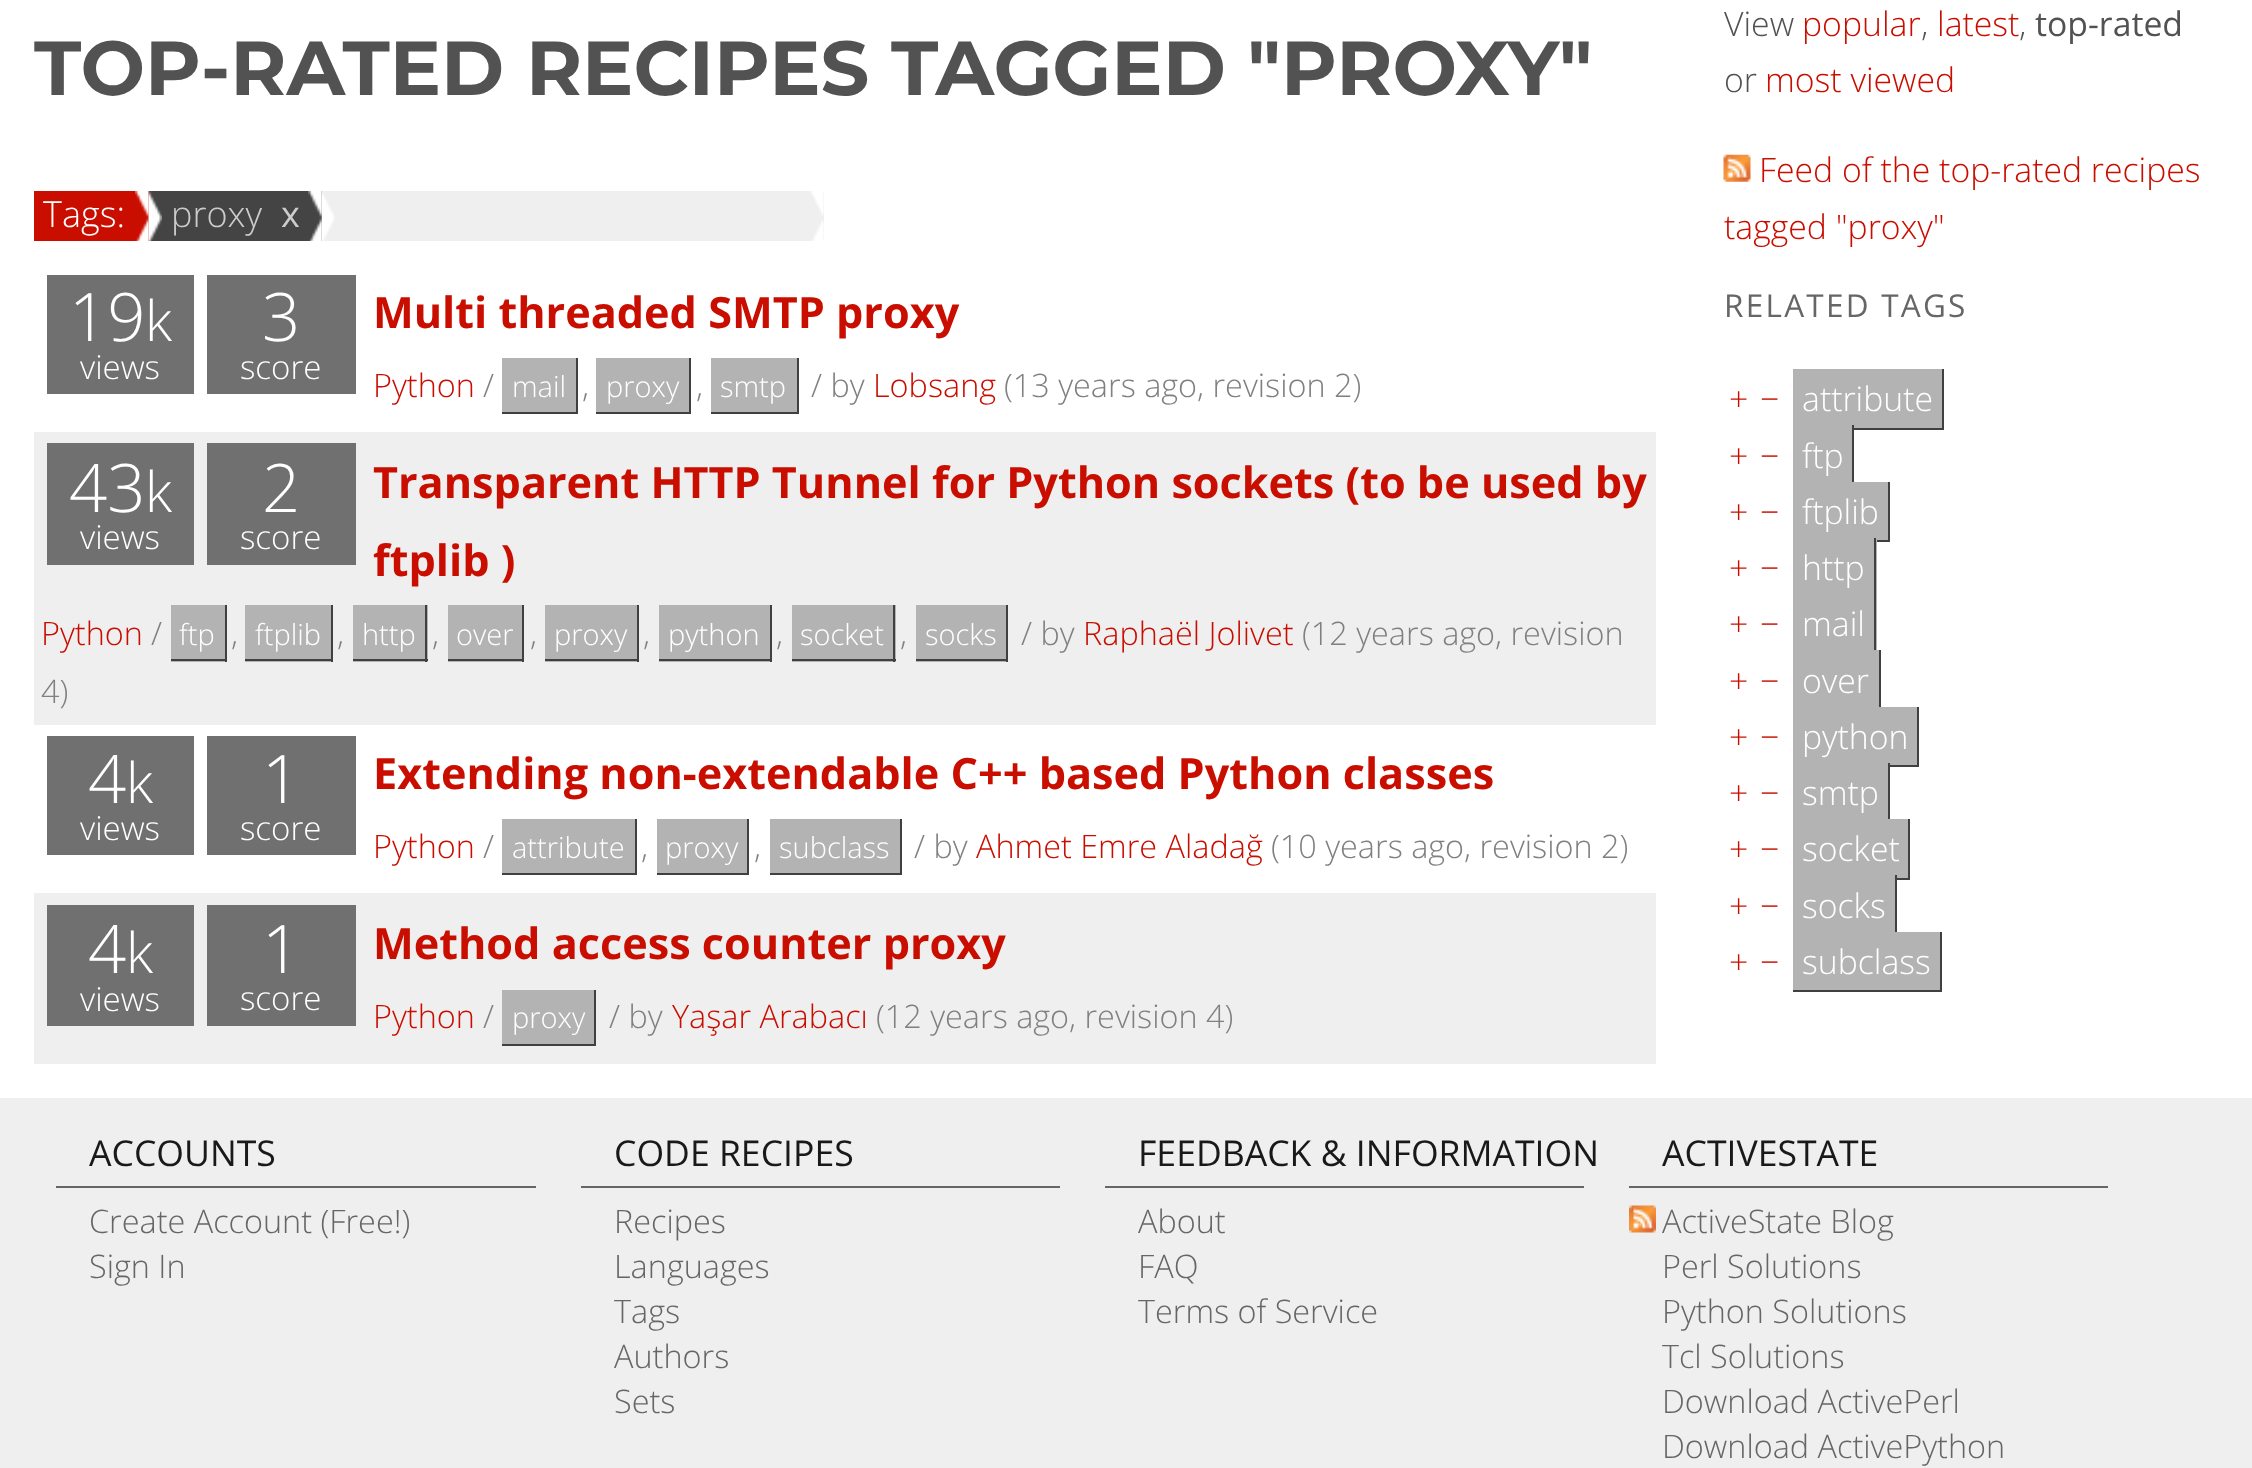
<svg xmlns="http://www.w3.org/2000/svg" width="2252" height="1468" viewBox="0 0 2252 1468">
  <rect width="100%" height="100%" fill="rgb(239,239,239)"/>
  <rect x="0" y="0" width="2252" height="1098" fill="rgb(255,255,255)"/>
  <text x="34" y="95" font-family="Montserrat" font-size="76.5" font-weight="bold" fill="rgb(82,82,82)">TOP-RATED RECIPES TAGGED "PROXY"</text>
  <rect x="34" y="191" width="115" height="50" fill="rgb(201,14,0)"/>
  <text x="43" y="227" font-family="Open Sans" font-size="36" font-weight="300" fill="rgb(255,255,255)">Tags:</text>
  <image x="135" y="191" width="14" height="50" href="pic1.png"/>
  <rect x="149" y="191" width="173" height="50" fill="rgb(68,68,68)"/>
  <image x="148" y="191" width="14" height="50" href="pic2.png"/>
  <text x="171" y="227" font-family="Open Sans" font-size="36" font-weight="300" fill="rgb(204,204,204)">proxy</text>
  <text x="281" y="227" font-family="Open Sans" font-size="36" fill="rgb(204,204,204)">x</text>
  <image x="308" y="191" width="14" height="50" href="pic3.png"/>
  <rect x="322" y="191" width="502" height="50" fill="rgb(239,239,239)"/>
  <image x="321" y="193" width="14" height="48" href="pic4.png"/>
  <image x="810" y="191" width="14" height="50" href="pic5.png"/>
  <rect x="47" y="275" width="147" height="119" fill="rgb(112,112,112)"/>
  <text x="69" y="341" font-family="Open Sans" font-size="67" font-weight="300" fill="rgb(255,255,255)">19</text>
  <text x="145" y="341" font-family="Open Sans" font-size="56" font-weight="300" fill="rgb(255,255,255)">k</text>
  <text x="80" y="379" font-family="Open Sans" font-size="33" font-weight="300" fill="rgb(255,255,255)">views</text>
  <rect x="207" y="275" width="149" height="119" fill="rgb(112,112,112)"/>
  <text x="262" y="341" font-family="Open Sans" font-size="67" font-weight="300" fill="rgb(255,255,255)">3</text>
  <text x="240" y="379" font-family="Open Sans" font-size="33" font-weight="300" fill="rgb(255,255,255)">score</text>
  <text x="373" y="328" font-family="Open Sans" font-size="43.2" font-weight="bold" fill="rgb(201,14,0)">Multi threaded SMTP proxy</text>
  <text x="373" y="397" font-family="Open Sans" font-size="32.4" font-weight="300" fill="rgb(201,14,0)">Python</text>
  <text x="483" y="397" font-family="Open Sans" font-size="32.4" font-weight="300" fill="rgb(128,128,128)">/</text>
  <rect x="502" y="358" width="74" height="54" fill="rgb(179,179,179)"/>
  <text x="512" y="397" font-family="Open Sans" font-size="29" font-weight="300" fill="rgb(255,255,255)">mail</text>
  <rect x="576" y="358" width="2" height="56" fill="rgb(64,64,65)"/>
  <rect x="502" y="412" width="76" height="2" fill="rgb(64,64,65)"/>
  <text x="582" y="397" font-family="Open Sans" font-size="32.4" font-weight="300" fill="rgb(128,128,128)">,</text>
  <rect x="596" y="358" width="93" height="54" fill="rgb(179,179,179)"/>
  <text x="606" y="397" font-family="Open Sans" font-size="29" font-weight="300" fill="rgb(255,255,255)">proxy</text>
  <rect x="689" y="358" width="2" height="56" fill="rgb(64,64,65)"/>
  <rect x="596" y="412" width="95" height="2" fill="rgb(64,64,65)"/>
  <text x="696" y="397" font-family="Open Sans" font-size="32.4" font-weight="300" fill="rgb(128,128,128)">,</text>
  <rect x="711" y="358" width="86" height="54" fill="rgb(179,179,179)"/>
  <text x="720" y="397" font-family="Open Sans" font-size="29" font-weight="300" fill="rgb(255,255,255)">smtp</text>
  <rect x="797" y="358" width="2" height="56" fill="rgb(64,64,65)"/>
  <rect x="711" y="412" width="88" height="2" fill="rgb(64,64,65)"/>
  <text x="811" y="397" font-family="Open Sans" font-size="32.4" font-weight="300" fill="rgb(128,128,128)">/ by</text>
  <text x="873" y="397" font-family="Open Sans" font-size="32.4" font-weight="300" fill="rgb(201,14,0)">Lobsang</text>
  <text x="1004" y="397" font-family="Open Sans" font-size="32.4" font-weight="300" fill="rgb(128,128,128)">(13 years ago, revision 2)</text>
  <rect x="34" y="432" width="1622" height="293" fill="rgb(239,239,239)"/>
  <rect x="47" y="443" width="147" height="122" fill="rgb(112,112,112)"/>
  <text x="69" y="512" font-family="Open Sans" font-size="67" font-weight="300" fill="rgb(255,255,255)">43</text>
  <text x="145" y="512" font-family="Open Sans" font-size="56" font-weight="300" fill="rgb(255,255,255)">k</text>
  <text x="80" y="549" font-family="Open Sans" font-size="33" font-weight="300" fill="rgb(255,255,255)">views</text>
  <rect x="207" y="443" width="149" height="122" fill="rgb(112,112,112)"/>
  <text x="262" y="512" font-family="Open Sans" font-size="67" font-weight="300" fill="rgb(255,255,255)">2</text>
  <text x="240" y="549" font-family="Open Sans" font-size="33" font-weight="300" fill="rgb(255,255,255)">score</text>
  <g font-family="Open Sans" font-size="43.2" font-weight="bold" fill="rgb(201,14,0)">
    <text>
      <tspan x="373" y="498">Transparent HTTP Tunnel for Python sockets (to be used by</tspan>
      <tspan x="373" y="576">ftplib )</tspan>
    </text>
  </g>
  <text x="41" y="645" font-family="Open Sans" font-size="32.4" font-weight="300" fill="rgb(201,14,0)">Python</text>
  <text x="151" y="645" font-family="Open Sans" font-size="32.4" font-weight="300" fill="rgb(128,128,128)">/</text>
  <rect x="171" y="605" width="54" height="57" fill="rgb(179,179,179)"/>
  <text x="179" y="645" font-family="Open Sans" font-size="29" font-weight="300" fill="rgb(255,255,255)">ftp</text>
  <rect x="225" y="605" width="2" height="57" fill="rgb(64,64,65)"/>
  <rect x="171" y="659" width="56" height="2" fill="rgb(64,64,65)"/>
  <text x="231" y="645" font-family="Open Sans" font-size="32.4" font-weight="300" fill="rgb(128,128,128)">,</text>
  <rect x="245" y="605" width="86" height="57" fill="rgb(179,179,179)"/>
  <text x="255" y="645" font-family="Open Sans" font-size="29" font-weight="300" fill="rgb(255,255,255)">ftplib</text>
  <rect x="331" y="605" width="2" height="57" fill="rgb(64,64,65)"/>
  <rect x="245" y="659" width="88" height="2" fill="rgb(64,64,65)"/>
  <text x="337" y="645" font-family="Open Sans" font-size="32.4" font-weight="300" fill="rgb(128,128,128)">,</text>
  <rect x="353" y="605" width="75" height="57" fill="rgb(179,179,179)"/>
  <text x="362" y="645" font-family="Open Sans" font-size="29" font-weight="300" fill="rgb(255,255,255)">http</text>
  <rect x="425" y="605" width="2" height="57" fill="rgb(64,64,65)"/>
  <rect x="353" y="659" width="75" height="2" fill="rgb(64,64,65)"/>
  <text x="432" y="645" font-family="Open Sans" font-size="32.4" font-weight="300" fill="rgb(128,128,128)">,</text>
  <rect x="448" y="605" width="74" height="57" fill="rgb(179,179,179)"/>
  <text x="456" y="645" font-family="Open Sans" font-size="29" font-weight="300" fill="rgb(255,255,255)">over</text>
  <rect x="522" y="605" width="2" height="57" fill="rgb(64,64,65)"/>
  <rect x="448" y="659" width="76" height="2" fill="rgb(64,64,65)"/>
  <text x="530" y="645" font-family="Open Sans" font-size="32.4" font-weight="300" fill="rgb(128,128,128)">,</text>
  <rect x="545" y="605" width="92" height="57" fill="rgb(179,179,179)"/>
  <text x="554" y="645" font-family="Open Sans" font-size="29" font-weight="300" fill="rgb(255,255,255)">proxy</text>
  <rect x="637" y="605" width="2" height="57" fill="rgb(64,64,65)"/>
  <rect x="545" y="659" width="94" height="2" fill="rgb(64,64,65)"/>
  <text x="643" y="645" font-family="Open Sans" font-size="32.4" font-weight="300" fill="rgb(128,128,128)">,</text>
  <rect x="659" y="605" width="111" height="57" fill="rgb(179,179,179)"/>
  <text x="668" y="645" font-family="Open Sans" font-size="29" font-weight="300" fill="rgb(255,255,255)">python</text>
  <rect x="770" y="605" width="2" height="57" fill="rgb(64,64,65)"/>
  <rect x="659" y="659" width="113" height="2" fill="rgb(64,64,65)"/>
  <text x="776" y="645" font-family="Open Sans" font-size="32.4" font-weight="300" fill="rgb(128,128,128)">,</text>
  <rect x="792" y="605" width="104" height="57" fill="rgb(179,179,179)"/>
  <text x="800" y="645" font-family="Open Sans" font-size="29" font-weight="300" fill="rgb(255,255,255)">socket</text>
  <rect x="893" y="605" width="2" height="57" fill="rgb(64,64,65)"/>
  <rect x="792" y="659" width="104" height="2" fill="rgb(64,64,65)"/>
  <text x="900" y="645" font-family="Open Sans" font-size="32.4" font-weight="300" fill="rgb(128,128,128)">,</text>
  <rect x="916" y="605" width="90" height="57" fill="rgb(179,179,179)"/>
  <text x="925" y="645" font-family="Open Sans" font-size="29" font-weight="300" fill="rgb(255,255,255)">socks</text>
  <rect x="1006" y="605" width="2" height="57" fill="rgb(64,64,65)"/>
  <rect x="916" y="659" width="92" height="2" fill="rgb(64,64,65)"/>
  <text x="1021" y="645" font-family="Open Sans" font-size="32.4" font-weight="300" fill="rgb(128,128,128)">/ by</text>
  <text x="1083" y="645" font-family="Open Sans" font-size="32.4" font-weight="300" fill="rgb(201,14,0)">Raphaël Jolivet</text>
  <g font-family="Open Sans" font-size="32.4" font-weight="300" fill="rgb(128,128,128)">
    <text x="1302" y="645">(12 years ago, revision</text>
    <text x="41" y="703">4)</text>
  </g>
  <rect x="47" y="736" width="147" height="119" fill="rgb(112,112,112)"/>
  <text x="88" y="803" font-family="Open Sans" font-size="67" font-weight="300" fill="rgb(255,255,255)">4</text>
  <text x="126" y="803" font-family="Open Sans" font-size="56" font-weight="300" fill="rgb(255,255,255)">k</text>
  <text x="80" y="840" font-family="Open Sans" font-size="33" font-weight="300" fill="rgb(255,255,255)">views</text>
  <rect x="207" y="736" width="149" height="119" fill="rgb(112,112,112)"/>
  <text x="262" y="803" font-family="Open Sans" font-size="67" font-weight="300" fill="rgb(255,255,255)">1</text>
  <text x="240" y="840" font-family="Open Sans" font-size="33" font-weight="300" fill="rgb(255,255,255)">score</text>
  <text x="373" y="789" font-family="Open Sans" font-size="43.2" font-weight="bold" fill="rgb(201,14,0)">Extending non-extendable C++ based Python classes</text>
  <text x="373" y="858" font-family="Open Sans" font-size="32.4" font-weight="300" fill="rgb(201,14,0)">Python</text>
  <text x="483" y="858" font-family="Open Sans" font-size="32.4" font-weight="300" fill="rgb(128,128,128)">/</text>
  <rect x="502" y="819" width="133" height="54" fill="rgb(179,179,179)"/>
  <text x="512" y="858" font-family="Open Sans" font-size="29" font-weight="300" fill="rgb(255,255,255)">attribute</text>
  <rect x="635" y="819" width="2" height="56" fill="rgb(64,64,65)"/>
  <rect x="502" y="873" width="135" height="2" fill="rgb(64,64,65)"/>
  <text x="641" y="858" font-family="Open Sans" font-size="32.4" font-weight="300" fill="rgb(128,128,128)">,</text>
  <rect x="657" y="819" width="90" height="54" fill="rgb(179,179,179)"/>
  <text x="665" y="858" font-family="Open Sans" font-size="29" font-weight="300" fill="rgb(255,255,255)">proxy</text>
  <rect x="747" y="819" width="2" height="56" fill="rgb(64,64,65)"/>
  <rect x="657" y="873" width="92" height="2" fill="rgb(64,64,65)"/>
  <text x="754" y="858" font-family="Open Sans" font-size="32.4" font-weight="300" fill="rgb(128,128,128)">,</text>
  <rect x="770" y="819" width="130" height="54" fill="rgb(179,179,179)"/>
  <text x="779" y="858" font-family="Open Sans" font-size="29" font-weight="300" fill="rgb(255,255,255)">subclass</text>
  <rect x="900" y="819" width="2" height="56" fill="rgb(64,64,65)"/>
  <rect x="770" y="873" width="132" height="2" fill="rgb(64,64,65)"/>
  <text x="914" y="858" font-family="Open Sans" font-size="32.4" font-weight="300" fill="rgb(128,128,128)">/ by</text>
  <text x="976" y="858" font-family="Open Sans" font-size="32.4" font-weight="300" fill="rgb(201,14,0)">Ahmet Emre Aladağ</text>
  <text x="1271" y="858" font-family="Open Sans" font-size="32.4" font-weight="300" fill="rgb(128,128,128)">(10 years ago, revision 2)</text>
  <rect x="34" y="893" width="1622" height="171" fill="rgb(239,239,239)"/>
  <rect x="47" y="905" width="147" height="121" fill="rgb(112,112,112)"/>
  <text x="88" y="973" font-family="Open Sans" font-size="67" font-weight="300" fill="rgb(255,255,255)">4</text>
  <text x="126" y="973" font-family="Open Sans" font-size="56" font-weight="300" fill="rgb(255,255,255)">k</text>
  <text x="80" y="1011" font-family="Open Sans" font-size="33" font-weight="300" fill="rgb(255,255,255)">views</text>
  <rect x="207" y="905" width="149" height="121" fill="rgb(112,112,112)"/>
  <text x="262" y="973" font-family="Open Sans" font-size="67" font-weight="300" fill="rgb(255,255,255)">1</text>
  <text x="240" y="1010" font-family="Open Sans" font-size="33" font-weight="300" fill="rgb(255,255,255)">score</text>
  <text x="373" y="959" font-family="Open Sans" font-size="43.2" font-weight="bold" fill="rgb(201,14,0)">Method access counter proxy</text>
  <text x="373" y="1028" font-family="Open Sans" font-size="32.4" font-weight="300" fill="rgb(201,14,0)">Python</text>
  <text x="483" y="1028" font-family="Open Sans" font-size="32.4" font-weight="300" fill="rgb(128,128,128)">/</text>
  <rect x="502" y="990" width="92" height="54" fill="rgb(179,179,179)"/>
  <text x="512" y="1028" font-family="Open Sans" font-size="29" font-weight="300" fill="rgb(255,255,255)">proxy</text>
  <rect x="594" y="990" width="2" height="56" fill="rgb(64,64,65)"/>
  <rect x="502" y="1044" width="94" height="2" fill="rgb(64,64,65)"/>
  <text x="609" y="1028" font-family="Open Sans" font-size="32.4" font-weight="300" fill="rgb(128,128,128)">/ by</text>
  <text x="672" y="1028" font-family="Open Sans" font-size="32.4" font-weight="300" fill="rgb(201,14,0)">Yaşar Arabacı</text>
  <text x="876" y="1028" font-family="Open Sans" font-size="32.4" font-weight="300" fill="rgb(128,128,128)">(12 years ago, revision 4)</text>
  <text x="1724" y="36" font-family="Open Sans" font-size="33.75" font-weight="300" fill="rgb(82,82,82)">View</text>
  <text x="1802" y="36" font-family="Open Sans" font-size="33.75" font-weight="300" fill="rgb(201,14,0)">popular</text>
  <text x="1921" y="36" font-family="Open Sans" font-size="33.75" font-weight="300" fill="rgb(82,82,82)">,</text>
  <text x="1937" y="36" font-family="Open Sans" font-size="33.75" font-weight="300" fill="rgb(201,14,0)">latest</text>
  <text x="2019" y="36" font-family="Open Sans" font-size="33.75" font-weight="300" fill="rgb(82,82,82)">,</text>
  <text x="2035" y="36" font-family="Open Sans" font-size="33.75" fill="rgb(82,82,82)">top-rated</text>
  <text x="1724" y="92" font-family="Open Sans" font-size="33.75" font-weight="300" fill="rgb(82,82,82)">or</text>
  <text x="1765" y="92" font-family="Open Sans" font-size="33.75" font-weight="300" fill="rgb(201,14,0)">most viewed</text>
  <image x="1723" y="154" width="28" height="28" href="pic6.png"/>
  <g font-family="Open Sans" font-size="33.75" font-weight="300" fill="rgb(201,14,0)">
    <text x="1759" y="182">Feed of the top-rated recipes</text>
    <text x="1724" y="239">tagged "proxy"</text>
  </g>
  <text x="1724" y="317" font-family="Open Sans" font-size="31.5" letter-spacing="2.25" fill="rgb(102,102,102)">RELATED TAGS</text>
  <g font-family="Open Sans" font-size="33.75" font-weight="300" fill="rgb(201,14,0)">
    <text x="1729" y="411">+</text>
    <text x="1760" y="411">−</text>
  </g>
  <rect x="1793" y="369" width="149" height="59" fill="rgb(179,179,179)"/>
  <text x="1802" y="411" font-family="Open Sans" font-size="33.75" font-weight="300" fill="rgb(255,255,255)">attribute</text>
  <rect x="1942" y="369" width="2" height="61" fill="rgb(64,64,65)"/>
  <rect x="1854" y="428" width="90" height="2" fill="rgb(64,64,65)"/>
  <g font-family="Open Sans" font-size="33.75" font-weight="300" fill="rgb(201,14,0)">
    <text x="1729" y="468">+</text>
    <text x="1760" y="468">−</text>
  </g>
  <rect x="1793" y="428" width="59" height="54" fill="rgb(179,179,179)"/>
  <text x="1802" y="468" font-family="Open Sans" font-size="33.75" font-weight="300" fill="rgb(255,255,255)">ftp</text>
  <rect x="1852" y="425" width="2" height="61" fill="rgb(64,64,65)"/>
  <g font-family="Open Sans" font-size="33.75" font-weight="300" fill="rgb(201,14,0)">
    <text x="1729" y="524">+</text>
    <text x="1760" y="524">−</text>
  </g>
  <rect x="1793" y="482" width="95" height="58" fill="rgb(179,179,179)"/>
  <text x="1802" y="524" font-family="Open Sans" font-size="33.75" font-weight="300" fill="rgb(255,255,255)">ftplib</text>
  <rect x="1888" y="482" width="2" height="60" fill="rgb(64,64,65)"/>
  <rect x="1877" y="540" width="13" height="2" fill="rgb(64,64,65)"/>
  <g font-family="Open Sans" font-size="33.75" font-weight="300" fill="rgb(201,14,0)">
    <text x="1729" y="580">+</text>
    <text x="1760" y="580">−</text>
  </g>
  <rect x="1793" y="540" width="84" height="54" fill="rgb(179,179,179)"/>
  <text x="1802" y="580" font-family="Open Sans" font-size="33.75" font-weight="300" fill="rgb(255,255,255)">http</text>
  <rect x="1874" y="538" width="2" height="61" fill="rgb(64,64,65)"/>
  <g font-family="Open Sans" font-size="33.75" font-weight="300" fill="rgb(201,14,0)">
    <text x="1729" y="636">+</text>
    <text x="1760" y="636">−</text>
  </g>
  <rect x="1793" y="594" width="84" height="56" fill="rgb(179,179,179)"/>
  <text x="1802" y="636" font-family="Open Sans" font-size="33.75" font-weight="300" fill="rgb(255,255,255)">mail</text>
  <rect x="1874" y="594" width="2" height="61" fill="rgb(64,64,65)"/>
  <g font-family="Open Sans" font-size="33.75" font-weight="300" fill="rgb(201,14,0)">
    <text x="1729" y="693">+</text>
    <text x="1760" y="693">−</text>
  </g>
  <rect x="1793" y="650" width="86" height="57" fill="rgb(179,179,179)"/>
  <text x="1802" y="693" font-family="Open Sans" font-size="33.75" font-weight="300" fill="rgb(255,255,255)">over</text>
  <rect x="1879" y="650" width="2" height="61" fill="rgb(64,64,65)"/>
  <g font-family="Open Sans" font-size="33.75" font-weight="300" fill="rgb(201,14,0)">
    <text x="1729" y="749">+</text>
    <text x="1760" y="749">−</text>
  </g>
  <rect x="1793" y="707" width="124" height="58" fill="rgb(179,179,179)"/>
  <text x="1802" y="749" font-family="Open Sans" font-size="33.75" font-weight="300" fill="rgb(255,255,255)">python</text>
  <rect x="1917" y="707" width="2" height="60" fill="rgb(64,64,65)"/>
  <rect x="1890" y="765" width="29" height="2" fill="rgb(64,64,65)"/>
  <g font-family="Open Sans" font-size="33.75" font-weight="300" fill="rgb(201,14,0)">
    <text x="1729" y="805">+</text>
    <text x="1760" y="805">−</text>
  </g>
  <rect x="1793" y="765" width="95" height="54" fill="rgb(179,179,179)"/>
  <text x="1802" y="805" font-family="Open Sans" font-size="33.75" font-weight="300" fill="rgb(255,255,255)">smtp</text>
  <rect x="1888" y="763" width="2" height="61" fill="rgb(64,64,65)"/>
  <g font-family="Open Sans" font-size="33.75" font-weight="300" fill="rgb(201,14,0)">
    <text x="1729" y="861">+</text>
    <text x="1760" y="861">−</text>
  </g>
  <rect x="1793" y="819" width="115" height="59" fill="rgb(179,179,179)"/>
  <text x="1802" y="861" font-family="Open Sans" font-size="33.75" font-weight="300" fill="rgb(255,255,255)">socket</text>
  <rect x="1908" y="819" width="2" height="61" fill="rgb(64,64,65)"/>
  <rect x="1897" y="878" width="13" height="2" fill="rgb(64,64,65)"/>
  <g font-family="Open Sans" font-size="33.75" font-weight="300" fill="rgb(201,14,0)">
    <text x="1729" y="918">+</text>
    <text x="1760" y="918">−</text>
  </g>
  <rect x="1793" y="878" width="102" height="54" fill="rgb(179,179,179)"/>
  <text x="1802" y="918" font-family="Open Sans" font-size="33.75" font-weight="300" fill="rgb(255,255,255)">socks</text>
  <rect x="1895" y="875" width="2" height="61" fill="rgb(64,64,65)"/>
  <g font-family="Open Sans" font-size="33.75" font-weight="300" fill="rgb(201,14,0)">
    <text x="1729" y="974">+</text>
    <text x="1760" y="974">−</text>
  </g>
  <rect x="1793" y="932" width="147" height="58" fill="rgb(179,179,179)"/>
  <text x="1802" y="974" font-family="Open Sans" font-size="33.75" font-weight="300" fill="rgb(255,255,255)">subclass</text>
  <rect x="1940" y="932" width="2" height="60" fill="rgb(64,64,65)"/>
  <rect x="1793" y="990" width="149" height="2" fill="rgb(64,64,65)"/>
  <rect x="56" y="1186" width="480" height="2" fill="rgb(102,102,102)"/>
  <text x="89" y="1166" font-family="Open Sans" font-size="35.6" fill="rgb(25,25,25)">ACCOUNTS</text>
  <g font-family="Open Sans" font-size="32.4" font-weight="300" fill="rgb(102,102,102)">
    <text>
      <tspan x="89" y="1233">Create Account (Free!)</tspan>
      <tspan x="89" y="1278">Sign In</tspan>
    </text>
  </g>
  <rect x="581" y="1186" width="479" height="2" fill="rgb(102,102,102)"/>
  <text x="614" y="1166" font-family="Open Sans" font-size="35.6" fill="rgb(25,25,25)">CODE RECIPES</text>
  <g font-family="Open Sans" font-size="32.4" font-weight="300" fill="rgb(102,102,102)">
    <text>
      <tspan x="614" y="1233">Recipes</tspan>
      <tspan x="614" y="1278">Languages</tspan>
      <tspan x="614" y="1323">Tags</tspan>
      <tspan x="614" y="1368">Authors</tspan>
      <tspan x="614" y="1413">Sets</tspan>
    </text>
  </g>
  <rect x="1105" y="1186" width="479" height="2" fill="rgb(102,102,102)"/>
  <text x="1138" y="1166" font-family="Open Sans" font-size="35.6" fill="rgb(25,25,25)">FEEDBACK &amp; INFORMATION</text>
  <g font-family="Open Sans" font-size="32.4" font-weight="300" fill="rgb(102,102,102)">
    <text>
      <tspan x="1138" y="1233">About</tspan>
      <tspan x="1138" y="1278">FAQ</tspan>
      <tspan x="1138" y="1323">Terms of Service</tspan>
    </text>
  </g>
  <rect x="1629" y="1186" width="479" height="2" fill="rgb(102,102,102)"/>
  <text x="1662" y="1166" font-family="Open Sans" font-size="35.6" fill="rgb(25,25,25)">ACTIVESTATE</text>
  <image x="1629" y="1205" width="27" height="28" href="pic7.png"/>
  <g font-family="Open Sans" font-size="32.4" font-weight="300" fill="rgb(102,102,102)">
    <text>
      <tspan x="1662" y="1233">ActiveState Blog</tspan>
      <tspan x="1662" y="1278">Perl Solutions</tspan>
      <tspan x="1662" y="1323">Python Solutions</tspan>
      <tspan x="1662" y="1368">Tcl Solutions</tspan>
      <tspan x="1662" y="1413">Download ActivePerl</tspan>
      <tspan x="1662" y="1458">Download ActivePython</tspan>
    </text>
  </g>
</svg>
